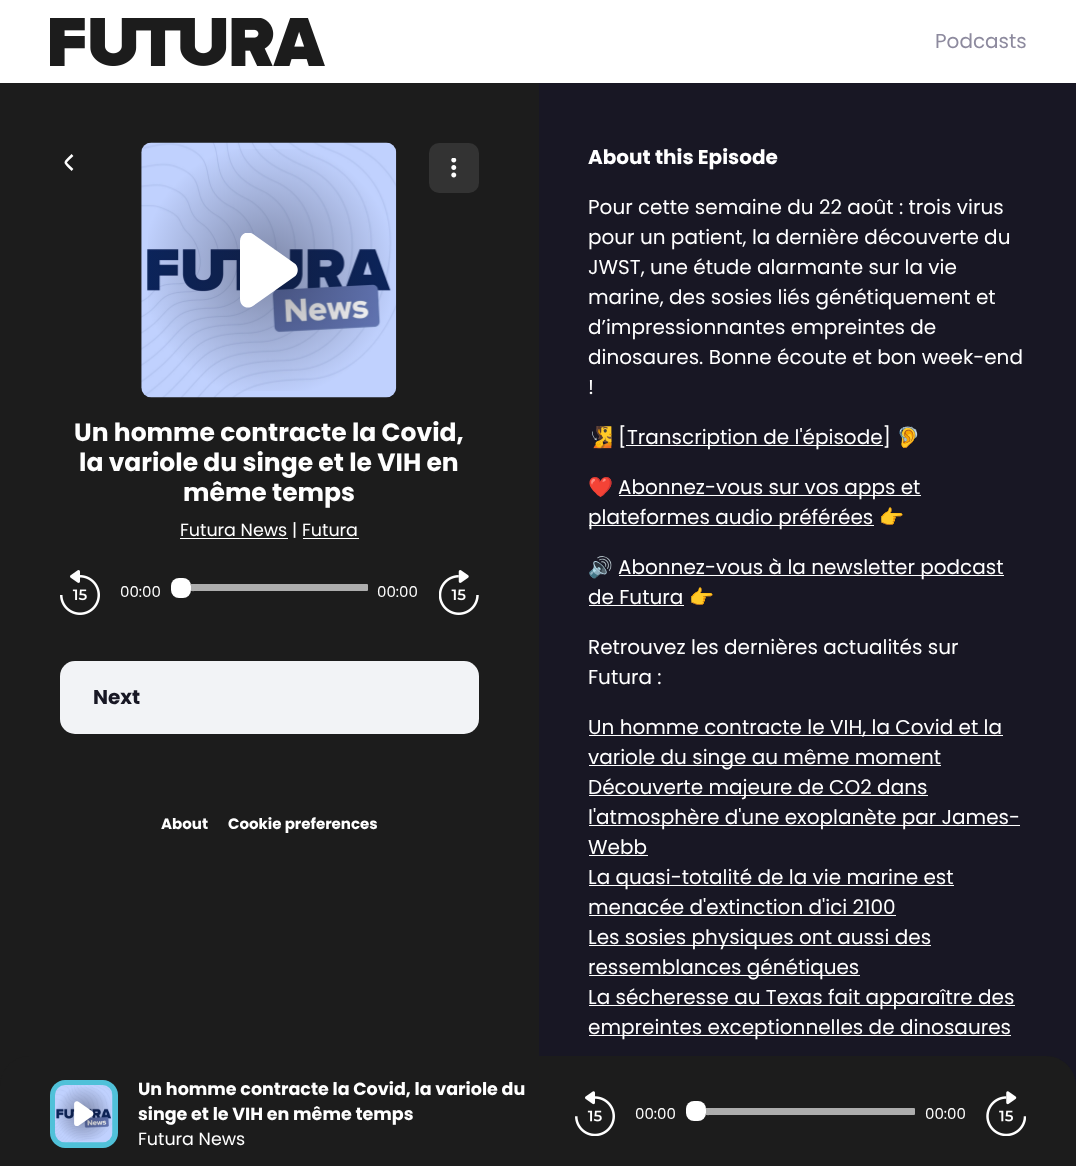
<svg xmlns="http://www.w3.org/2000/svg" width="1076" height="1166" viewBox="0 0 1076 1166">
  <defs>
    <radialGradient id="g1" gradientUnits="userSpaceOnUse" cx="269" cy="270" r="128"><stop offset="0" stop-color="rgb(24,23,36)" stop-opacity="0.4"/><stop offset="1" stop-color="rgb(24,23,36)" stop-opacity="0"/></radialGradient>
    <clipPath id="clip1"><rect x="231" y="233" width="75" height="75"/></clipPath>
    <radialGradient id="g2" gradientUnits="userSpaceOnUse" cx="84" cy="1114" r="29"><stop offset="0" stop-color="rgb(24,23,36)" stop-opacity="0.4"/><stop offset="1" stop-color="rgb(24,23,36)" stop-opacity="0"/></radialGradient>
  </defs>
  <rect width="100%" height="100%" fill="rgb(255,255,255)"/>
  <image x="50" y="18" width="275" height="48" href="pic1.png"/>
  <text x="935" y="48" font-family="Poppins" font-size="20" fill="rgb(141,138,158)">Podcasts</text>
  <rect x="0" y="83" width="539" height="1003" fill="rgb(28,28,28)"/>
  <image x="141" y="142" width="256" height="256" href="pic2.png"/>
  <rect x="148" y="149" width="242" height="242" fill="url(#g1)"/>
  <g clip-path="url(#clip1)">
    <path d="M240 299V241C240 234 247 230 253 234L294 263C299 266 299 274 294 277L253 306C247 310 240 306 240 299Z" fill="rgb(255,255,255)"/>
  </g>
  <path d="M72.5 155C63.5 164 63.5 161 72.5 170" fill="none" stroke="rgb(255,255,255)" stroke-width="2.5"/>
  <rect x="429" y="143" width="50" height="50" rx="10" fill="rgb(51,51,51)"/>
  <image x="451" y="158" width="6" height="20" href="pic3.png"/>
  <g font-family="Poppins" font-size="25" font-weight="bold" fill="rgb(255,255,255)">
    <text x="74" y="441">Un homme contracte la Covid,</text>
    <text x="79" y="471">la variole du singe et le VIH en</text>
    <text x="183" y="501">même temps</text>
  </g>
  <text x="180" y="536" font-family="Poppins" font-size="17.5" fill="rgb(255,255,255)">Futura News</text>
  <rect x="180" y="538" width="108" height="1" fill="rgb(255,255,255)"/>
  <g font-family="Poppins" font-size="17.5" fill="rgb(255,255,255)">
    <text x="292" y="536">|</text>
    <text x="302" y="536">Futura</text>
  </g>
  <rect x="303" y="538" width="56" height="1" fill="rgb(255,255,255)"/>
  <image x="60" y="570" width="40" height="45" href="pic4.png"/>
  <text x="120" y="597" font-family="Poppins" font-size="15" fill="rgb(255,255,255)">00:00</text>
  <rect x="360" y="584" width="8" height="7" rx="1" fill="rgb(173,173,173)"/>
  <rect x="359" y="584" width="7" height="7" rx="1" fill="rgb(173,173,173)"/>
  <rect x="358" y="584" width="7" height="7" rx="1" fill="rgb(173,173,173)"/>
  <rect x="356" y="584" width="8" height="7" rx="1" fill="rgb(173,173,173)"/>
  <rect x="355" y="584" width="8" height="7" rx="1" fill="rgb(173,173,173)"/>
  <rect x="354" y="584" width="7" height="7" rx="1" fill="rgb(173,173,173)"/>
  <rect x="353" y="584" width="7" height="7" rx="1" fill="rgb(173,173,173)"/>
  <rect x="351" y="584" width="8" height="7" rx="1" fill="rgb(173,173,173)"/>
  <rect x="350" y="584" width="8" height="7" rx="1" fill="rgb(173,173,173)"/>
  <rect x="349" y="584" width="7" height="7" rx="1" fill="rgb(173,173,173)"/>
  <rect x="348" y="584" width="7" height="7" rx="1" fill="rgb(173,173,173)"/>
  <rect x="346" y="584" width="8" height="7" rx="1" fill="rgb(173,173,173)"/>
  <rect x="345" y="584" width="8" height="7" rx="1" fill="rgb(173,173,173)"/>
  <rect x="344" y="584" width="7" height="7" rx="1" fill="rgb(173,173,173)"/>
  <rect x="343" y="584" width="7" height="7" rx="1" fill="rgb(173,173,173)"/>
  <rect x="341" y="584" width="8" height="7" rx="1" fill="rgb(173,173,173)"/>
  <rect x="340" y="584" width="8" height="7" rx="1" fill="rgb(173,173,173)"/>
  <rect x="339" y="584" width="7" height="7" rx="1" fill="rgb(173,173,173)"/>
  <rect x="338" y="584" width="7" height="7" rx="1" fill="rgb(173,173,173)"/>
  <rect x="336" y="584" width="8" height="7" rx="1" fill="rgb(173,173,173)"/>
  <rect x="335" y="584" width="8" height="7" rx="1" fill="rgb(173,173,173)"/>
  <rect x="334" y="584" width="7" height="7" rx="1" fill="rgb(173,173,173)"/>
  <rect x="333" y="584" width="7" height="7" rx="1" fill="rgb(173,173,173)"/>
  <rect x="331" y="584" width="8" height="7" rx="1" fill="rgb(173,173,173)"/>
  <rect x="330" y="584" width="8" height="7" rx="1" fill="rgb(173,173,173)"/>
  <rect x="329" y="584" width="7" height="7" rx="1" fill="rgb(173,173,173)"/>
  <rect x="328" y="584" width="7" height="7" rx="1" fill="rgb(173,173,173)"/>
  <rect x="326" y="584" width="8" height="7" rx="1" fill="rgb(173,173,173)"/>
  <rect x="325" y="584" width="8" height="7" rx="1" fill="rgb(173,173,173)"/>
  <rect x="324" y="584" width="7" height="7" rx="1" fill="rgb(173,173,173)"/>
  <rect x="323" y="584" width="7" height="7" rx="1" fill="rgb(173,173,173)"/>
  <rect x="321" y="584" width="8" height="7" rx="1" fill="rgb(173,173,173)"/>
  <rect x="320" y="584" width="8" height="7" rx="1" fill="rgb(173,173,173)"/>
  <rect x="319" y="584" width="7" height="7" rx="1" fill="rgb(173,173,173)"/>
  <rect x="318" y="584" width="7" height="7" rx="1" fill="rgb(173,173,173)"/>
  <rect x="316" y="584" width="8" height="7" rx="1" fill="rgb(173,173,173)"/>
  <rect x="315" y="584" width="8" height="7" rx="1" fill="rgb(173,173,173)"/>
  <rect x="314" y="584" width="7" height="7" rx="1" fill="rgb(173,173,173)"/>
  <rect x="313" y="584" width="7" height="7" rx="1" fill="rgb(173,173,173)"/>
  <rect x="311" y="584" width="8" height="7" rx="1" fill="rgb(173,173,173)"/>
  <rect x="310" y="584" width="8" height="7" rx="1" fill="rgb(173,173,173)"/>
  <rect x="309" y="584" width="7" height="7" rx="1" fill="rgb(173,173,173)"/>
  <rect x="308" y="584" width="7" height="7" rx="1" fill="rgb(173,173,173)"/>
  <rect x="306" y="584" width="8" height="7" rx="1" fill="rgb(173,173,173)"/>
  <rect x="305" y="584" width="8" height="7" rx="1" fill="rgb(173,173,173)"/>
  <rect x="304" y="584" width="7" height="7" rx="1" fill="rgb(173,173,173)"/>
  <rect x="303" y="584" width="7" height="7" rx="1" fill="rgb(173,173,173)"/>
  <rect x="301" y="584" width="8" height="7" rx="1" fill="rgb(173,173,173)"/>
  <rect x="300" y="584" width="8" height="7" rx="1" fill="rgb(173,173,173)"/>
  <rect x="299" y="584" width="7" height="7" rx="1" fill="rgb(173,173,173)"/>
  <rect x="298" y="584" width="7" height="7" rx="1" fill="rgb(173,173,173)"/>
  <rect x="296" y="584" width="8" height="7" rx="1" fill="rgb(173,173,173)"/>
  <rect x="295" y="584" width="8" height="7" rx="1" fill="rgb(173,173,173)"/>
  <rect x="294" y="584" width="7" height="7" rx="1" fill="rgb(173,173,173)"/>
  <rect x="293" y="584" width="7" height="7" rx="1" fill="rgb(173,173,173)"/>
  <rect x="291" y="584" width="8" height="7" rx="1" fill="rgb(173,173,173)"/>
  <rect x="290" y="584" width="8" height="7" rx="1" fill="rgb(173,173,173)"/>
  <rect x="289" y="584" width="7" height="7" rx="1" fill="rgb(173,173,173)"/>
  <rect x="288" y="584" width="7" height="7" rx="1" fill="rgb(173,173,173)"/>
  <rect x="286" y="584" width="8" height="7" rx="1" fill="rgb(173,173,173)"/>
  <rect x="285" y="584" width="8" height="7" rx="1" fill="rgb(173,173,173)"/>
  <rect x="284" y="584" width="7" height="7" rx="1" fill="rgb(173,173,173)"/>
  <rect x="283" y="584" width="7" height="7" rx="1" fill="rgb(173,173,173)"/>
  <rect x="281" y="584" width="8" height="7" rx="1" fill="rgb(173,173,173)"/>
  <rect x="280" y="584" width="8" height="7" rx="1" fill="rgb(173,173,173)"/>
  <rect x="279" y="584" width="7" height="7" rx="1" fill="rgb(173,173,173)"/>
  <rect x="278" y="584" width="7" height="7" rx="1" fill="rgb(173,173,173)"/>
  <rect x="276" y="584" width="8" height="7" rx="1" fill="rgb(173,173,173)"/>
  <rect x="275" y="584" width="8" height="7" rx="1" fill="rgb(173,173,173)"/>
  <rect x="274" y="584" width="7" height="7" rx="1" fill="rgb(173,173,173)"/>
  <rect x="273" y="584" width="7" height="7" rx="1" fill="rgb(173,173,173)"/>
  <rect x="271" y="584" width="8" height="7" rx="1" fill="rgb(173,173,173)"/>
  <rect x="270" y="584" width="8" height="7" rx="1" fill="rgb(173,173,173)"/>
  <rect x="269" y="584" width="7" height="7" rx="1" fill="rgb(173,173,173)"/>
  <rect x="268" y="584" width="7" height="7" rx="1" fill="rgb(173,173,173)"/>
  <rect x="266" y="584" width="8" height="7" rx="1" fill="rgb(173,173,173)"/>
  <rect x="265" y="584" width="8" height="7" rx="1" fill="rgb(173,173,173)"/>
  <rect x="264" y="584" width="7" height="7" rx="1" fill="rgb(173,173,173)"/>
  <rect x="263" y="584" width="7" height="7" rx="1" fill="rgb(173,173,173)"/>
  <rect x="261" y="584" width="8" height="7" rx="1" fill="rgb(173,173,173)"/>
  <rect x="260" y="584" width="8" height="7" rx="1" fill="rgb(173,173,173)"/>
  <rect x="259" y="584" width="7" height="7" rx="1" fill="rgb(173,173,173)"/>
  <rect x="258" y="584" width="7" height="7" rx="1" fill="rgb(173,173,173)"/>
  <rect x="256" y="584" width="8" height="7" rx="1" fill="rgb(173,173,173)"/>
  <rect x="255" y="584" width="8" height="7" rx="1" fill="rgb(173,173,173)"/>
  <rect x="254" y="584" width="7" height="7" rx="1" fill="rgb(173,173,173)"/>
  <rect x="253" y="584" width="7" height="7" rx="1" fill="rgb(173,173,173)"/>
  <rect x="251" y="584" width="8" height="7" rx="1" fill="rgb(173,173,173)"/>
  <rect x="250" y="584" width="8" height="7" rx="1" fill="rgb(173,173,173)"/>
  <rect x="249" y="584" width="7" height="7" rx="1" fill="rgb(173,173,173)"/>
  <rect x="248" y="584" width="7" height="7" rx="1" fill="rgb(173,173,173)"/>
  <rect x="246" y="584" width="8" height="7" rx="1" fill="rgb(173,173,173)"/>
  <rect x="245" y="584" width="8" height="7" rx="1" fill="rgb(173,173,173)"/>
  <rect x="244" y="584" width="7" height="7" rx="1" fill="rgb(173,173,173)"/>
  <rect x="243" y="584" width="7" height="7" rx="1" fill="rgb(173,173,173)"/>
  <rect x="241" y="584" width="8" height="7" rx="1" fill="rgb(173,173,173)"/>
  <rect x="240" y="584" width="8" height="7" rx="1" fill="rgb(173,173,173)"/>
  <rect x="239" y="584" width="7" height="7" rx="1" fill="rgb(173,173,173)"/>
  <rect x="238" y="584" width="7" height="7" rx="1" fill="rgb(173,173,173)"/>
  <rect x="236" y="584" width="8" height="7" rx="1" fill="rgb(173,173,173)"/>
  <rect x="235" y="584" width="8" height="7" rx="1" fill="rgb(173,173,173)"/>
  <rect x="234" y="584" width="7" height="7" rx="1" fill="rgb(173,173,173)"/>
  <rect x="233" y="584" width="7" height="7" rx="1" fill="rgb(173,173,173)"/>
  <rect x="231" y="584" width="8" height="7" rx="1" fill="rgb(173,173,173)"/>
  <rect x="230" y="584" width="8" height="7" rx="1" fill="rgb(173,173,173)"/>
  <rect x="229" y="584" width="7" height="7" rx="1" fill="rgb(173,173,173)"/>
  <rect x="228" y="584" width="7" height="7" rx="1" fill="rgb(173,173,173)"/>
  <rect x="226" y="584" width="8" height="7" rx="1" fill="rgb(173,173,173)"/>
  <rect x="225" y="584" width="8" height="7" rx="1" fill="rgb(173,173,173)"/>
  <rect x="224" y="584" width="7" height="7" rx="1" fill="rgb(173,173,173)"/>
  <rect x="223" y="584" width="7" height="7" rx="1" fill="rgb(173,173,173)"/>
  <rect x="221" y="584" width="8" height="7" rx="1" fill="rgb(173,173,173)"/>
  <rect x="220" y="584" width="8" height="7" rx="1" fill="rgb(173,173,173)"/>
  <rect x="219" y="584" width="7" height="7" rx="1" fill="rgb(173,173,173)"/>
  <rect x="218" y="584" width="7" height="7" rx="1" fill="rgb(173,173,173)"/>
  <rect x="216" y="584" width="8" height="7" rx="1" fill="rgb(173,173,173)"/>
  <rect x="215" y="584" width="8" height="7" rx="1" fill="rgb(173,173,173)"/>
  <rect x="214" y="584" width="7" height="7" rx="1" fill="rgb(173,173,173)"/>
  <rect x="213" y="584" width="7" height="7" rx="1" fill="rgb(173,173,173)"/>
  <rect x="211" y="584" width="8" height="7" rx="1" fill="rgb(173,173,173)"/>
  <rect x="210" y="584" width="8" height="7" rx="1" fill="rgb(173,173,173)"/>
  <rect x="209" y="584" width="7" height="7" rx="1" fill="rgb(173,173,173)"/>
  <rect x="208" y="584" width="7" height="7" rx="1" fill="rgb(173,173,173)"/>
  <rect x="206" y="584" width="8" height="7" rx="1" fill="rgb(173,173,173)"/>
  <rect x="205" y="584" width="8" height="7" rx="1" fill="rgb(173,173,173)"/>
  <rect x="204" y="584" width="7" height="7" rx="1" fill="rgb(173,173,173)"/>
  <rect x="203" y="584" width="7" height="7" rx="1" fill="rgb(173,173,173)"/>
  <rect x="201" y="584" width="8" height="7" rx="1" fill="rgb(173,173,173)"/>
  <rect x="200" y="584" width="8" height="7" rx="1" fill="rgb(173,173,173)"/>
  <rect x="199" y="584" width="7" height="7" rx="1" fill="rgb(173,173,173)"/>
  <rect x="198" y="584" width="7" height="7" rx="1" fill="rgb(173,173,173)"/>
  <rect x="196" y="584" width="8" height="7" rx="1" fill="rgb(173,173,173)"/>
  <rect x="195" y="584" width="8" height="7" rx="1" fill="rgb(173,173,173)"/>
  <rect x="194" y="584" width="7" height="7" rx="1" fill="rgb(173,173,173)"/>
  <rect x="193" y="584" width="7" height="7" rx="1" fill="rgb(173,173,173)"/>
  <path d="M192 584L191 584.5V590.5C192 591.5 194 591 195 591C199 591 199 591.5 199 587.5C199 586.5 199.5 584 198 584Z" fill="rgb(173,173,173)"/>
  <path d="M191 591H196C198.5 591 198 590 198 587.5C198 585 198.5 584 196 584H191Z" fill="rgb(173,173,173)"/>
  <path d="M191 591C196 591 196 592 196 587.5C196 583 196 584 191 584Z" fill="rgb(173,173,173)"/>
  <rect x="171" y="578" width="20" height="20" rx="8" fill="rgb(255,255,255)"/>
  <text x="377" y="597" font-family="Poppins" font-size="15" fill="rgb(255,255,255)">00:00</text>
  <image x="439" y="570" width="40" height="45" href="pic5.png"/>
  <rect x="60" y="661" width="419" height="73" rx="15" fill="rgb(242,243,246)"/>
  <text x="93" y="704" font-family="Poppins" font-size="20" font-weight="bold" fill="rgb(24,23,36)">Next</text>
  <g font-family="Poppins" font-size="15" font-weight="bold" fill="rgb(255,255,255)">
    <text x="161" y="829">About</text>
    <text x="228" y="829">Cookie preferences</text>
  </g>
  <rect x="539" y="83" width="537" height="1003" fill="rgb(24,23,36)"/>
  <text x="588" y="164" font-family="Poppins" font-size="20" font-weight="bold" fill="rgb(255,255,255)">About this Episode</text>
  <g font-family="Poppins" font-size="20" fill="rgb(255,255,255)">
    <text>
      <tspan x="588" y="214">Pour cette semaine du 22 août : trois virus</tspan>
      <tspan x="588" y="244">pour un patient, la dernière découverte du</tspan>
      <tspan x="588" y="274">JWST, une étude alarmante sur la vie</tspan>
      <tspan x="588" y="304">marine, des sosies liés génétiquement et</tspan>
      <tspan x="588" y="334">d’impressionnantes empreintes de</tspan>
      <tspan x="588" y="364">dinosaures. Bonne écoute et bon week-end</tspan>
      <tspan x="588" y="394">!</tspan>
    </text>
  </g>
  <text x="588" y="444" font-family="Noto Color Emoji" font-size="20" fill="rgb(255,255,255)">🧏</text>
  <text x="618" y="444" font-family="Poppins" font-size="20" fill="rgb(255,255,255)">[</text>
  <rect x="626" y="445" width="257" height="1" fill="rgb(255,255,255)"/>
  <text x="627" y="444" font-family="Poppins" font-size="20" fill="rgb(255,255,255)">Transcription de l'épisode]</text>
  <g font-family="Noto Color Emoji" font-size="20" fill="rgb(255,255,255)">
    <text x="896" y="444">🦻</text>
    <text x="588" y="494">❤️</text>
  </g>
  <rect x="619" y="495" width="302" height="1" fill="rgb(255,255,255)"/>
  <text x="618" y="494" font-family="Poppins" font-size="20" fill="rgb(255,255,255)">Abonnez-vous sur vos apps et</text>
  <rect x="589" y="525" width="285" height="1" fill="rgb(255,255,255)"/>
  <text x="588" y="524" font-family="Poppins" font-size="20" fill="rgb(255,255,255)">plateformes audio préférées</text>
  <g font-family="Noto Color Emoji" font-size="20" fill="rgb(255,255,255)">
    <text x="879" y="524">👉</text>
    <text x="588" y="574">🔊</text>
  </g>
  <rect x="619" y="575" width="385" height="1" fill="rgb(255,255,255)"/>
  <g font-family="Poppins" font-size="20" fill="rgb(255,255,255)">
    <text x="618" y="574">Abonnez-vous à la newsletter podcast</text>
    <text x="588" y="604">de Futura</text>
  </g>
  <rect x="589" y="605" width="95" height="1" fill="rgb(255,255,255)"/>
  <text x="689" y="604" font-family="Noto Color Emoji" font-size="20" fill="rgb(255,255,255)">👉</text>
  <g font-family="Poppins" font-size="20" fill="rgb(255,255,255)">
    <text>
      <tspan x="588" y="654">Retrouvez les dernières actualités sur</tspan>
      <tspan x="588" y="684">Futura :</tspan>
    </text>
  </g>
  <rect x="589" y="735" width="414" height="1" fill="rgb(255,255,255)"/>
  <text x="588" y="734" font-family="Poppins" font-size="20" fill="rgb(255,255,255)">Un homme contracte le VIH, la Covid et la</text>
  <rect x="589" y="765" width="352" height="1" fill="rgb(255,255,255)"/>
  <text x="588" y="764" font-family="Poppins" font-size="20" fill="rgb(255,255,255)">variole du singe au même moment</text>
  <rect x="589" y="795" width="339" height="1" fill="rgb(255,255,255)"/>
  <text x="588" y="794" font-family="Poppins" font-size="20" fill="rgb(255,255,255)">Découverte majeure de CO2 dans</text>
  <rect x="589" y="825" width="431" height="1" fill="rgb(255,255,255)"/>
  <g font-family="Poppins" font-size="20" fill="rgb(255,255,255)">
    <text>
      <tspan x="588" y="824">l'atmosphère d'une exoplanète par James-</tspan>
      <tspan x="588" y="854">Webb</tspan>
    </text>
  </g>
  <rect x="589" y="855" width="59" height="1" fill="rgb(255,255,255)"/>
  <rect x="589" y="885" width="365" height="1" fill="rgb(255,255,255)"/>
  <g font-family="Poppins" font-size="20" fill="rgb(255,255,255)">
    <text>
      <tspan x="588" y="884">La quasi-totalité de la vie marine est</tspan>
      <tspan x="588" y="914">menacée d'extinction d'ici 2100</tspan>
    </text>
  </g>
  <rect x="589" y="915" width="307" height="1" fill="rgb(255,255,255)"/>
  <rect x="589" y="945" width="342" height="1" fill="rgb(255,255,255)"/>
  <text x="588" y="944" font-family="Poppins" font-size="20" fill="rgb(255,255,255)">Les sosies physiques ont aussi des</text>
  <rect x="589" y="975" width="271" height="1" fill="rgb(255,255,255)"/>
  <text x="588" y="974" font-family="Poppins" font-size="20" fill="rgb(255,255,255)">ressemblances génétiques</text>
  <rect x="589" y="1005" width="426" height="1" fill="rgb(255,255,255)"/>
  <text x="588" y="1004" font-family="Poppins" font-size="20" fill="rgb(255,255,255)">La sécheresse au Texas fait apparaître des</text>
  <rect x="589" y="1035" width="422" height="1" fill="rgb(255,255,255)"/>
  <text x="588" y="1034" font-family="Poppins" font-size="20" fill="rgb(255,255,255)">empreintes exceptionnelles de dinosaures</text>
  <path d="M30 1056H1046C1062.5 1056 1076 1069.5 1076 1086V1166H0V1086C0 1069.5 13.5 1056 30 1056Z" fill="rgb(28,28,28)"/>
  <path d="M65 1080H103C111 1080 118 1087 118 1095V1133C118 1141 111 1148 103 1148H65C57 1148 50 1141 50 1133V1095C50 1087 57 1080 65 1080Z" fill="rgb(80,193,217)"/>
  <image x="55" y="1085" width="58" height="58" href="pic6.png"/>
  <rect x="57" y="1087" width="54" height="54" fill="url(#g2)"/>
  <image x="74" y="1101" width="20" height="25" href="pic7.png"/>
  <g font-family="Poppins" font-size="17.5" font-weight="bold" fill="rgb(255,255,255)">
    <text>
      <tspan x="138" y="1095">Un homme contracte la Covid, la variole du</tspan>
      <tspan x="138" y="1120">singe et le VIH en même temps</tspan>
    </text>
  </g>
  <text x="138" y="1145" font-family="Poppins" font-size="17.5" fill="rgb(255,255,255)">Futura News</text>
  <image x="575" y="1091" width="40" height="45" href="pic8.png"/>
  <text x="635" y="1119" font-family="Poppins" font-size="15" fill="rgb(255,255,255)">00:00</text>
  <rect x="908" y="1108" width="7" height="7" rx="1" fill="rgb(173,173,173)"/>
  <rect x="906" y="1108" width="8" height="7" rx="1" fill="rgb(173,173,173)"/>
  <rect x="905" y="1108" width="8" height="7" rx="1" fill="rgb(173,173,173)"/>
  <rect x="904" y="1108" width="7" height="7" rx="1" fill="rgb(173,173,173)"/>
  <rect x="903" y="1108" width="7" height="7" rx="1" fill="rgb(173,173,173)"/>
  <rect x="901" y="1108" width="8" height="7" rx="1" fill="rgb(173,173,173)"/>
  <rect x="900" y="1108" width="8" height="7" rx="1" fill="rgb(173,173,173)"/>
  <rect x="899" y="1108" width="7" height="7" rx="1" fill="rgb(173,173,173)"/>
  <rect x="898" y="1108" width="7" height="7" rx="1" fill="rgb(173,173,173)"/>
  <rect x="896" y="1108" width="8" height="7" rx="1" fill="rgb(173,173,173)"/>
  <rect x="895" y="1108" width="8" height="7" rx="1" fill="rgb(173,173,173)"/>
  <rect x="894" y="1108" width="7" height="7" rx="1" fill="rgb(173,173,173)"/>
  <rect x="893" y="1108" width="7" height="7" rx="1" fill="rgb(173,173,173)"/>
  <rect x="891" y="1108" width="8" height="7" rx="1" fill="rgb(173,173,173)"/>
  <rect x="890" y="1108" width="8" height="7" rx="1" fill="rgb(173,173,173)"/>
  <rect x="889" y="1108" width="7" height="7" rx="1" fill="rgb(173,173,173)"/>
  <rect x="888" y="1108" width="7" height="7" rx="1" fill="rgb(173,173,173)"/>
  <rect x="886" y="1108" width="8" height="7" rx="1" fill="rgb(173,173,173)"/>
  <rect x="885" y="1108" width="8" height="7" rx="1" fill="rgb(173,173,173)"/>
  <rect x="884" y="1108" width="7" height="7" rx="1" fill="rgb(173,173,173)"/>
  <rect x="883" y="1108" width="7" height="7" rx="1" fill="rgb(173,173,173)"/>
  <rect x="881" y="1108" width="8" height="7" rx="1" fill="rgb(173,173,173)"/>
  <rect x="880" y="1108" width="8" height="7" rx="1" fill="rgb(173,173,173)"/>
  <rect x="879" y="1108" width="7" height="7" rx="1" fill="rgb(173,173,173)"/>
  <rect x="878" y="1108" width="7" height="7" rx="1" fill="rgb(173,173,173)"/>
  <rect x="876" y="1108" width="8" height="7" rx="1" fill="rgb(173,173,173)"/>
  <rect x="875" y="1108" width="8" height="7" rx="1" fill="rgb(173,173,173)"/>
  <rect x="874" y="1108" width="7" height="7" rx="1" fill="rgb(173,173,173)"/>
  <rect x="873" y="1108" width="7" height="7" rx="1" fill="rgb(173,173,173)"/>
  <rect x="871" y="1108" width="8" height="7" rx="1" fill="rgb(173,173,173)"/>
  <rect x="870" y="1108" width="8" height="7" rx="1" fill="rgb(173,173,173)"/>
  <rect x="869" y="1108" width="7" height="7" rx="1" fill="rgb(173,173,173)"/>
  <rect x="868" y="1108" width="7" height="7" rx="1" fill="rgb(173,173,173)"/>
  <rect x="866" y="1108" width="8" height="7" rx="1" fill="rgb(173,173,173)"/>
  <rect x="865" y="1108" width="8" height="7" rx="1" fill="rgb(173,173,173)"/>
  <rect x="864" y="1108" width="7" height="7" rx="1" fill="rgb(173,173,173)"/>
  <rect x="863" y="1108" width="7" height="7" rx="1" fill="rgb(173,173,173)"/>
  <rect x="861" y="1108" width="8" height="7" rx="1" fill="rgb(173,173,173)"/>
  <rect x="860" y="1108" width="8" height="7" rx="1" fill="rgb(173,173,173)"/>
  <rect x="859" y="1108" width="7" height="7" rx="1" fill="rgb(173,173,173)"/>
  <rect x="858" y="1108" width="7" height="7" rx="1" fill="rgb(173,173,173)"/>
  <rect x="856" y="1108" width="8" height="7" rx="1" fill="rgb(173,173,173)"/>
  <rect x="855" y="1108" width="8" height="7" rx="1" fill="rgb(173,173,173)"/>
  <rect x="854" y="1108" width="7" height="7" rx="1" fill="rgb(173,173,173)"/>
  <rect x="853" y="1108" width="7" height="7" rx="1" fill="rgb(173,173,173)"/>
  <rect x="851" y="1108" width="8" height="7" rx="1" fill="rgb(173,173,173)"/>
  <rect x="850" y="1108" width="8" height="7" rx="1" fill="rgb(173,173,173)"/>
  <rect x="849" y="1108" width="7" height="7" rx="1" fill="rgb(173,173,173)"/>
  <rect x="848" y="1108" width="7" height="7" rx="1" fill="rgb(173,173,173)"/>
  <rect x="846" y="1108" width="8" height="7" rx="1" fill="rgb(173,173,173)"/>
  <rect x="845" y="1108" width="8" height="7" rx="1" fill="rgb(173,173,173)"/>
  <rect x="844" y="1108" width="7" height="7" rx="1" fill="rgb(173,173,173)"/>
  <rect x="843" y="1108" width="7" height="7" rx="1" fill="rgb(173,173,173)"/>
  <rect x="841" y="1108" width="8" height="7" rx="1" fill="rgb(173,173,173)"/>
  <rect x="840" y="1108" width="8" height="7" rx="1" fill="rgb(173,173,173)"/>
  <rect x="839" y="1108" width="7" height="7" rx="1" fill="rgb(173,173,173)"/>
  <rect x="838" y="1108" width="7" height="7" rx="1" fill="rgb(173,173,173)"/>
  <rect x="836" y="1108" width="8" height="7" rx="1" fill="rgb(173,173,173)"/>
  <rect x="835" y="1108" width="8" height="7" rx="1" fill="rgb(173,173,173)"/>
  <rect x="834" y="1108" width="7" height="7" rx="1" fill="rgb(173,173,173)"/>
  <rect x="833" y="1108" width="7" height="7" rx="1" fill="rgb(173,173,173)"/>
  <rect x="831" y="1108" width="8" height="7" rx="1" fill="rgb(173,173,173)"/>
  <rect x="830" y="1108" width="8" height="7" rx="1" fill="rgb(173,173,173)"/>
  <rect x="829" y="1108" width="7" height="7" rx="1" fill="rgb(173,173,173)"/>
  <rect x="828" y="1108" width="7" height="7" rx="1" fill="rgb(173,173,173)"/>
  <rect x="826" y="1108" width="8" height="7" rx="1" fill="rgb(173,173,173)"/>
  <rect x="825" y="1108" width="8" height="7" rx="1" fill="rgb(173,173,173)"/>
  <rect x="824" y="1108" width="7" height="7" rx="1" fill="rgb(173,173,173)"/>
  <rect x="823" y="1108" width="7" height="7" rx="1" fill="rgb(173,173,173)"/>
  <rect x="821" y="1108" width="8" height="7" rx="1" fill="rgb(173,173,173)"/>
  <rect x="820" y="1108" width="8" height="7" rx="1" fill="rgb(173,173,173)"/>
  <rect x="819" y="1108" width="7" height="7" rx="1" fill="rgb(173,173,173)"/>
  <rect x="818" y="1108" width="7" height="7" rx="1" fill="rgb(173,173,173)"/>
  <rect x="816" y="1108" width="8" height="7" rx="1" fill="rgb(173,173,173)"/>
  <rect x="815" y="1108" width="8" height="7" rx="1" fill="rgb(173,173,173)"/>
  <rect x="814" y="1108" width="7" height="7" rx="1" fill="rgb(173,173,173)"/>
  <rect x="813" y="1108" width="7" height="7" rx="1" fill="rgb(173,173,173)"/>
  <rect x="811" y="1108" width="8" height="7" rx="1" fill="rgb(173,173,173)"/>
  <rect x="810" y="1108" width="8" height="7" rx="1" fill="rgb(173,173,173)"/>
  <rect x="809" y="1108" width="7" height="7" rx="1" fill="rgb(173,173,173)"/>
  <rect x="808" y="1108" width="7" height="7" rx="1" fill="rgb(173,173,173)"/>
  <rect x="806" y="1108" width="8" height="7" rx="1" fill="rgb(173,173,173)"/>
  <rect x="805" y="1108" width="8" height="7" rx="1" fill="rgb(173,173,173)"/>
  <rect x="804" y="1108" width="7" height="7" rx="1" fill="rgb(173,173,173)"/>
  <rect x="803" y="1108" width="7" height="7" rx="1" fill="rgb(173,173,173)"/>
  <rect x="801" y="1108" width="8" height="7" rx="1" fill="rgb(173,173,173)"/>
  <rect x="800" y="1108" width="8" height="7" rx="1" fill="rgb(173,173,173)"/>
  <rect x="799" y="1108" width="7" height="7" rx="1" fill="rgb(173,173,173)"/>
  <rect x="798" y="1108" width="7" height="7" rx="1" fill="rgb(173,173,173)"/>
  <rect x="796" y="1108" width="8" height="7" rx="1" fill="rgb(173,173,173)"/>
  <rect x="795" y="1108" width="8" height="7" rx="1" fill="rgb(173,173,173)"/>
  <rect x="794" y="1108" width="7" height="7" rx="1" fill="rgb(173,173,173)"/>
  <rect x="793" y="1108" width="7" height="7" rx="1" fill="rgb(173,173,173)"/>
  <rect x="791" y="1108" width="8" height="7" rx="1" fill="rgb(173,173,173)"/>
  <rect x="790" y="1108" width="8" height="7" rx="1" fill="rgb(173,173,173)"/>
  <rect x="789" y="1108" width="7" height="7" rx="1" fill="rgb(173,173,173)"/>
  <rect x="788" y="1108" width="7" height="7" rx="1" fill="rgb(173,173,173)"/>
  <rect x="786" y="1108" width="8" height="7" rx="1" fill="rgb(173,173,173)"/>
  <rect x="785" y="1108" width="8" height="7" rx="1" fill="rgb(173,173,173)"/>
  <rect x="784" y="1108" width="7" height="7" rx="1" fill="rgb(173,173,173)"/>
  <rect x="783" y="1108" width="7" height="7" rx="1" fill="rgb(173,173,173)"/>
  <rect x="781" y="1108" width="8" height="7" rx="1" fill="rgb(173,173,173)"/>
  <rect x="780" y="1108" width="8" height="7" rx="1" fill="rgb(173,173,173)"/>
  <rect x="779" y="1108" width="7" height="7" rx="1" fill="rgb(173,173,173)"/>
  <rect x="778" y="1108" width="7" height="7" rx="1" fill="rgb(173,173,173)"/>
  <rect x="776" y="1108" width="8" height="7" rx="1" fill="rgb(173,173,173)"/>
  <rect x="775" y="1108" width="8" height="7" rx="1" fill="rgb(173,173,173)"/>
  <rect x="774" y="1108" width="7" height="7" rx="1" fill="rgb(173,173,173)"/>
  <rect x="773" y="1108" width="7" height="7" rx="1" fill="rgb(173,173,173)"/>
  <rect x="771" y="1108" width="8" height="7" rx="1" fill="rgb(173,173,173)"/>
  <rect x="770" y="1108" width="8" height="7" rx="1" fill="rgb(173,173,173)"/>
  <rect x="769" y="1108" width="7" height="7" rx="1" fill="rgb(173,173,173)"/>
  <rect x="768" y="1108" width="7" height="7" rx="1" fill="rgb(173,173,173)"/>
  <rect x="766" y="1108" width="8" height="7" rx="1" fill="rgb(173,173,173)"/>
  <rect x="765" y="1108" width="8" height="7" rx="1" fill="rgb(173,173,173)"/>
  <rect x="764" y="1108" width="7" height="7" rx="1" fill="rgb(173,173,173)"/>
  <rect x="763" y="1108" width="7" height="7" rx="1" fill="rgb(173,173,173)"/>
  <rect x="761" y="1108" width="8" height="7" rx="1" fill="rgb(173,173,173)"/>
  <rect x="760" y="1108" width="8" height="7" rx="1" fill="rgb(173,173,173)"/>
  <rect x="759" y="1108" width="7" height="7" rx="1" fill="rgb(173,173,173)"/>
  <rect x="758" y="1108" width="7" height="7" rx="1" fill="rgb(173,173,173)"/>
  <rect x="756" y="1108" width="8" height="7" rx="1" fill="rgb(173,173,173)"/>
  <rect x="755" y="1108" width="8" height="7" rx="1" fill="rgb(173,173,173)"/>
  <rect x="754" y="1108" width="7" height="7" rx="1" fill="rgb(173,173,173)"/>
  <rect x="753" y="1108" width="7" height="7" rx="1" fill="rgb(173,173,173)"/>
  <rect x="751" y="1108" width="8" height="7" rx="1" fill="rgb(173,173,173)"/>
  <rect x="750" y="1108" width="8" height="7" rx="1" fill="rgb(173,173,173)"/>
  <rect x="749" y="1108" width="7" height="7" rx="1" fill="rgb(173,173,173)"/>
  <rect x="748" y="1108" width="7" height="7" rx="1" fill="rgb(173,173,173)"/>
  <rect x="746" y="1108" width="8" height="7" rx="1" fill="rgb(173,173,173)"/>
  <rect x="745" y="1108" width="8" height="7" rx="1" fill="rgb(173,173,173)"/>
  <rect x="744" y="1108" width="7" height="7" rx="1" fill="rgb(173,173,173)"/>
  <rect x="743" y="1108" width="7" height="7" rx="1" fill="rgb(173,173,173)"/>
  <rect x="741" y="1108" width="8" height="7" rx="1" fill="rgb(173,173,173)"/>
  <rect x="740" y="1108" width="8" height="7" rx="1" fill="rgb(173,173,173)"/>
  <rect x="739" y="1108" width="7" height="7" rx="1" fill="rgb(173,173,173)"/>
  <rect x="738" y="1108" width="7" height="7" rx="1" fill="rgb(173,173,173)"/>
  <rect x="736" y="1108" width="8" height="7" rx="1" fill="rgb(173,173,173)"/>
  <rect x="735" y="1108" width="8" height="7" rx="1" fill="rgb(173,173,173)"/>
  <rect x="734" y="1108" width="7" height="7" rx="1" fill="rgb(173,173,173)"/>
  <rect x="733" y="1108" width="7" height="7" rx="1" fill="rgb(173,173,173)"/>
  <rect x="731" y="1108" width="8" height="7" rx="1" fill="rgb(173,173,173)"/>
  <rect x="730" y="1108" width="8" height="7" rx="1" fill="rgb(173,173,173)"/>
  <rect x="729" y="1108" width="7" height="7" rx="1" fill="rgb(173,173,173)"/>
  <rect x="728" y="1108" width="7" height="7" rx="1" fill="rgb(173,173,173)"/>
  <rect x="726" y="1108" width="8" height="7" rx="1" fill="rgb(173,173,173)"/>
  <rect x="725" y="1108" width="8" height="7" rx="1" fill="rgb(173,173,173)"/>
  <rect x="724" y="1108" width="7" height="7" rx="1" fill="rgb(173,173,173)"/>
  <rect x="723" y="1108" width="7" height="7" rx="1" fill="rgb(173,173,173)"/>
  <rect x="721" y="1108" width="8" height="7" rx="1" fill="rgb(173,173,173)"/>
  <rect x="720" y="1108" width="8" height="7" rx="1" fill="rgb(173,173,173)"/>
  <rect x="719" y="1108" width="7" height="7" rx="1" fill="rgb(173,173,173)"/>
  <rect x="718" y="1108" width="7" height="7" rx="1" fill="rgb(173,173,173)"/>
  <rect x="716" y="1108" width="8" height="7" rx="1" fill="rgb(173,173,173)"/>
  <rect x="715" y="1108" width="8" height="7" rx="1" fill="rgb(173,173,173)"/>
  <rect x="714" y="1108" width="7" height="7" rx="1" fill="rgb(173,173,173)"/>
  <rect x="713" y="1108" width="7" height="7" rx="1" fill="rgb(173,173,173)"/>
  <rect x="711" y="1108" width="8" height="7" rx="1" fill="rgb(173,173,173)"/>
  <rect x="710" y="1108" width="8" height="7" rx="1" fill="rgb(173,173,173)"/>
  <rect x="709" y="1108" width="7" height="7" rx="1" fill="rgb(173,173,173)"/>
  <rect x="708" y="1108" width="7" height="7" rx="1" fill="rgb(173,173,173)"/>
  <path d="M707 1108L706 1108.5V1114.5C707 1115.5 709 1115 710 1115C714 1115 714 1115.5 714 1111.5C714 1110.5 714.5 1108 713 1108Z" fill="rgb(173,173,173)"/>
  <path d="M706 1115H711C713.5 1115 713 1114 713 1111.5C713 1109 713.5 1108 711 1108H706Z" fill="rgb(173,173,173)"/>
  <path d="M706 1115C710.5 1115 711 1116 711 1111.5C711 1107 711 1108 706 1108Z" fill="rgb(173,173,173)"/>
  <rect x="686" y="1101" width="20" height="20" rx="8" fill="rgb(255,255,255)"/>
  <text x="925" y="1119" font-family="Poppins" font-size="15" fill="rgb(255,255,255)">00:00</text>
  <image x="986" y="1091" width="40" height="45" href="pic9.png"/>
</svg>
